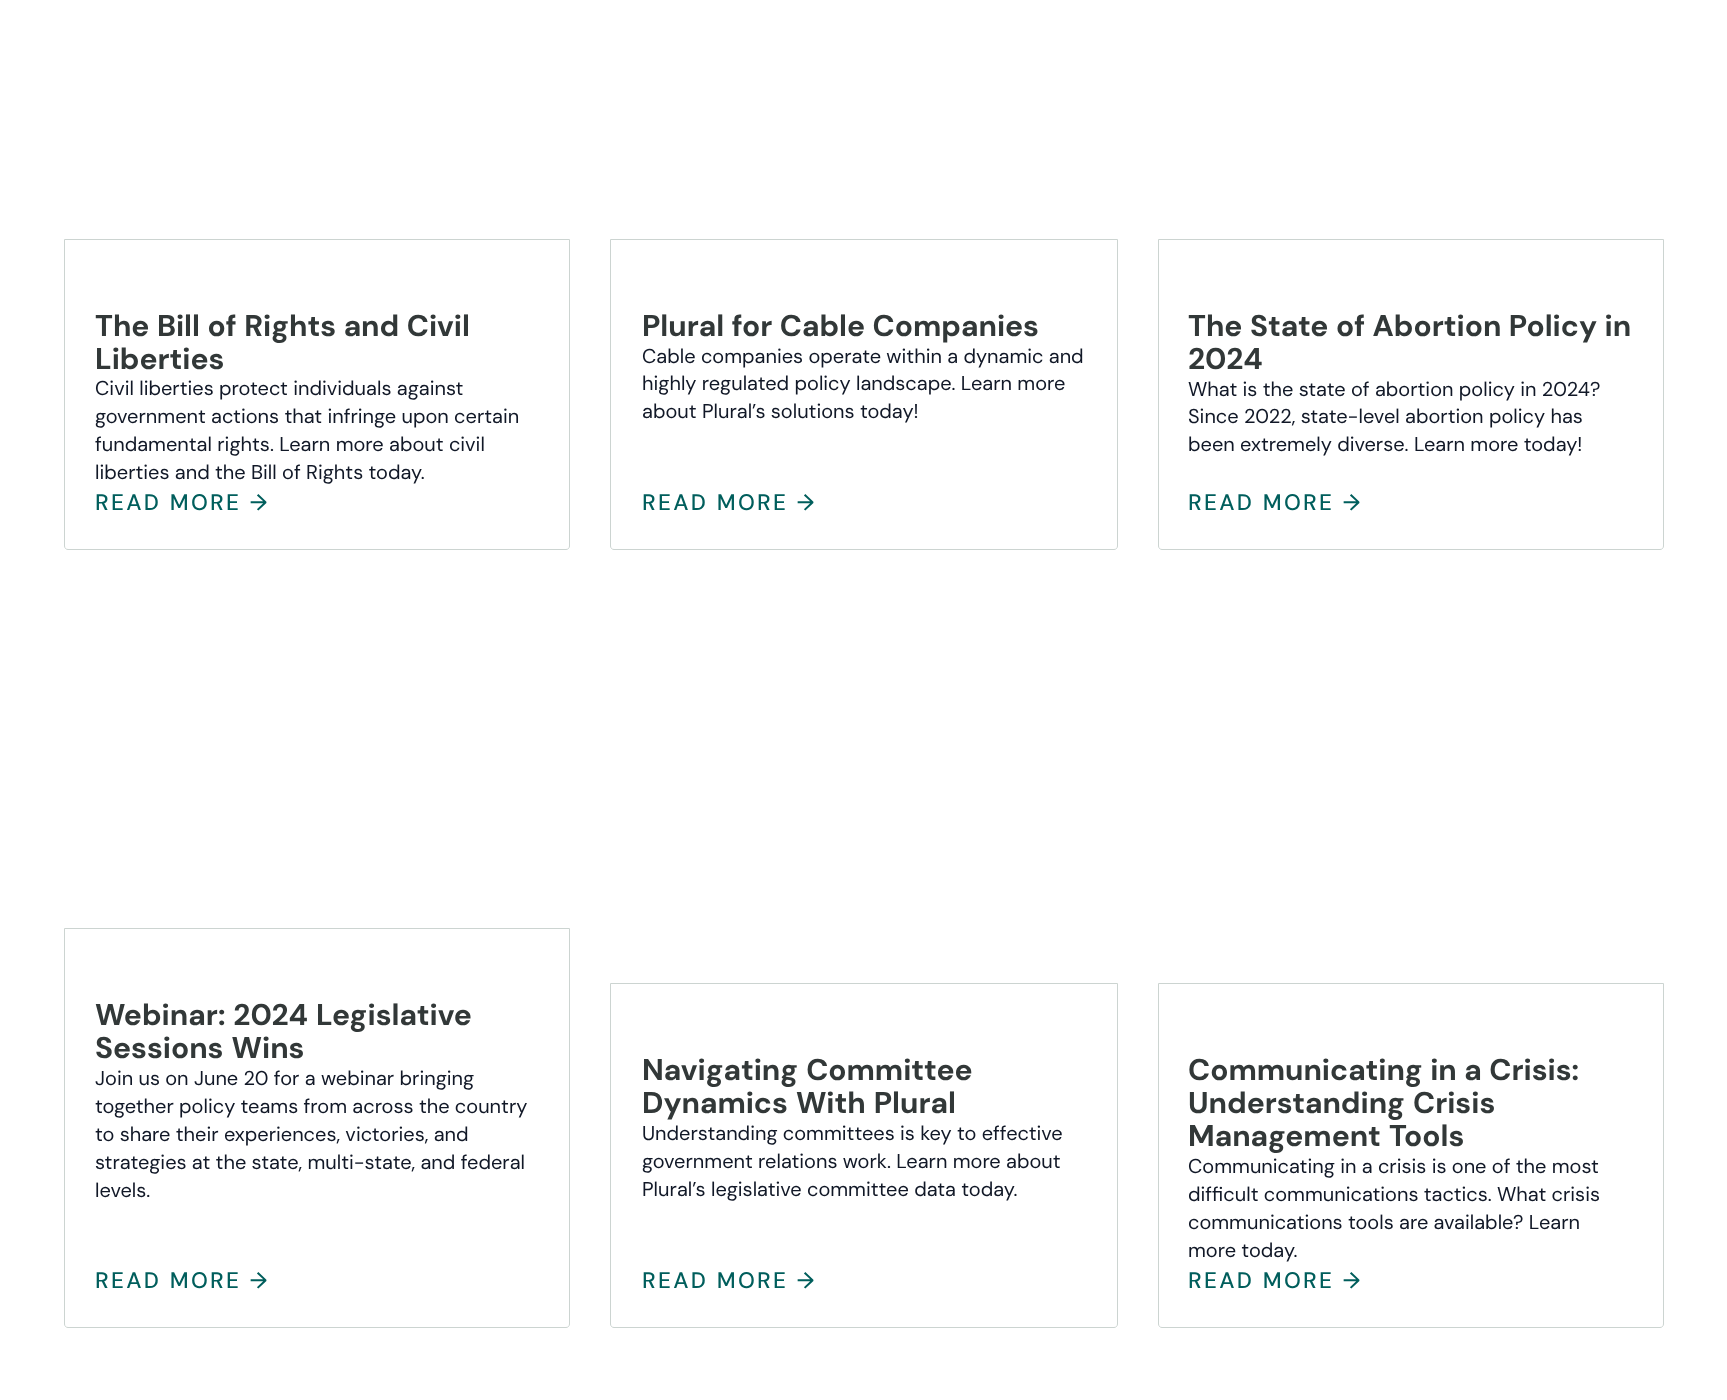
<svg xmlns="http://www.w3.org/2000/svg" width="1727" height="1400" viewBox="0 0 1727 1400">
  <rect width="100%" height="100%" fill="rgb(255,255,255)"/>
  <path d="M64.5 239.5H569.5V546C569.5 548 568 549.5 566 549.5H68C66 549.5 64.5 548 64.5 546Z" fill="none" stroke="rgb(204,212,209)"/>
  <g font-family="DM Sans" font-size="30" font-weight="bold" fill="rgb(50,56,56)">
    <text>
      <tspan x="95" y="336" word-spacing="0.5">The Bill of Rights and Civil</tspan>
      <tspan x="95" y="369">Liberties</tspan>
    </text>
  </g>
  <g font-family="DM Sans" font-size="20" fill="rgb(17,24,39)">
    <text>
      <tspan x="95" y="395">Civil liberties protect individuals against</tspan>
      <tspan x="95" y="423">government actions that infringe upon certain</tspan>
      <tspan x="95" y="451">fundamental rights. Learn more about civil</tspan>
      <tspan x="95" y="479">liberties and the Bill of Rights today.</tspan>
    </text>
  </g>
  <text x="95" y="510" word-spacing="0.5" font-family="DM Sans" font-size="22.5" font-weight="500" letter-spacing="2.25" fill="rgb(0,94,92)">READ MORE →</text>
  <path d="M610.5 239.5H1117.5V546C1117.5 548 1116 549.5 1114 549.5H614C612 549.5 610.5 548 610.5 546Z" fill="none" stroke="rgb(204,212,209)"/>
  <text x="642" y="336" word-spacing="0.5" font-family="DM Sans" font-size="30" font-weight="bold" fill="rgb(50,56,56)">Plural for Cable Companies</text>
  <g font-family="DM Sans" font-size="20" fill="rgb(17,24,39)">
    <text>
      <tspan x="642" y="363">Cable companies operate within a dynamic and</tspan>
      <tspan x="642" y="390">highly regulated policy landscape. Learn more</tspan>
      <tspan x="642" y="418">about Plural’s solutions today!</tspan>
    </text>
  </g>
  <text x="642" y="510" word-spacing="0.5" font-family="DM Sans" font-size="22.5" font-weight="500" letter-spacing="2.25" fill="rgb(0,94,92)">READ MORE →</text>
  <path d="M1158.5 239.5H1663.5V546C1663.5 548 1662 549.5 1660 549.5H1162C1160 549.5 1158.5 548 1158.5 546Z" fill="none" stroke="rgb(204,212,209)"/>
  <g font-family="DM Sans" font-size="30" font-weight="bold" fill="rgb(50,56,56)">
    <text>
      <tspan x="1188" y="336" word-spacing="0.5">The State of Abortion Policy in</tspan>
      <tspan x="1188" y="369">2024</tspan>
    </text>
  </g>
  <g font-family="DM Sans" font-size="20" fill="rgb(17,24,39)">
    <text>
      <tspan x="1188" y="396">What is the state of abortion policy in 2024?</tspan>
      <tspan x="1188" y="423">Since 2022, state-level abortion policy has</tspan>
      <tspan x="1188" y="451">been extremely diverse. Learn more today!</tspan>
    </text>
  </g>
  <text x="1188" y="510" word-spacing="0.5" font-family="DM Sans" font-size="22.5" font-weight="500" letter-spacing="2.25" fill="rgb(0,94,92)">READ MORE →</text>
  <path d="M64.5 928.5H569.5V1324C569.5 1326 568 1327.5 566 1327.5H68C66 1327.5 64.5 1326 64.5 1324Z" fill="none" stroke="rgb(204,212,209)"/>
  <g font-family="DM Sans" font-size="30" font-weight="bold" fill="rgb(50,56,56)">
    <text>
      <tspan x="95" y="1025" word-spacing="1">Webinar: 2024 Legislative</tspan>
      <tspan x="95" y="1058" word-spacing="1">Sessions Wins</tspan>
    </text>
  </g>
  <g font-family="DM Sans" font-size="20" fill="rgb(17,24,39)">
    <text>
      <tspan x="95" y="1085">Join us on June 20 for a webinar bringing</tspan>
      <tspan x="95" y="1113">together policy teams from across the country</tspan>
      <tspan x="95" y="1141">to share their experiences, victories, and</tspan>
      <tspan x="95" y="1169">strategies at the state, multi-state, and federal</tspan>
      <tspan x="95" y="1197">levels.</tspan>
    </text>
  </g>
  <text x="95" y="1288" word-spacing="0.5" font-family="DM Sans" font-size="22.5" font-weight="500" letter-spacing="2.25" fill="rgb(0,94,92)">READ MORE →</text>
  <path d="M610.5 983.5H1117.5V1324C1117.5 1326 1116 1327.5 1114 1327.5H614C612 1327.5 610.5 1326 610.5 1324Z" fill="none" stroke="rgb(204,212,209)"/>
  <g font-family="DM Sans" font-size="30" font-weight="bold" fill="rgb(50,56,56)">
    <text>
      <tspan x="642" y="1080" word-spacing="1">Navigating Committee</tspan>
      <tspan x="642" y="1113" word-spacing="1">Dynamics With Plural</tspan>
    </text>
  </g>
  <g font-family="DM Sans" font-size="20" fill="rgb(17,24,39)">
    <text>
      <tspan x="642" y="1140">Understanding committees is key to effective</tspan>
      <tspan x="642" y="1168">government relations work. Learn more about</tspan>
      <tspan x="642" y="1196">Plural’s legislative committee data today.</tspan>
    </text>
  </g>
  <text x="642" y="1288" word-spacing="0.5" font-family="DM Sans" font-size="22.5" font-weight="500" letter-spacing="2.25" fill="rgb(0,94,92)">READ MORE →</text>
  <path d="M1158.5 983.5H1663.5V1324C1663.5 1326 1662 1327.5 1660 1327.5H1162C1160 1327.5 1158.5 1326 1158.5 1324Z" fill="none" stroke="rgb(204,212,209)"/>
  <g font-family="DM Sans" font-size="30" font-weight="bold" fill="rgb(50,56,56)">
    <text>
      <tspan x="1188" y="1080" word-spacing="0.5">Communicating in a Crisis:</tspan>
      <tspan x="1188" y="1113" word-spacing="1">Understanding Crisis</tspan>
      <tspan x="1188" y="1146" word-spacing="1">Management Tools</tspan>
    </text>
  </g>
  <g font-family="DM Sans" font-size="20" fill="rgb(17,24,39)">
    <text>
      <tspan x="1188" y="1173">Communicating in a crisis is one of the most</tspan>
      <tspan x="1188" y="1201">difficult communications tactics. What crisis</tspan>
      <tspan x="1188" y="1229">communications tools are available? Learn</tspan>
      <tspan x="1188" y="1257">more today.</tspan>
    </text>
  </g>
  <text x="1188" y="1288" word-spacing="0.5" font-family="DM Sans" font-size="22.5" font-weight="500" letter-spacing="2.25" fill="rgb(0,94,92)">READ MORE →</text>
</svg>
